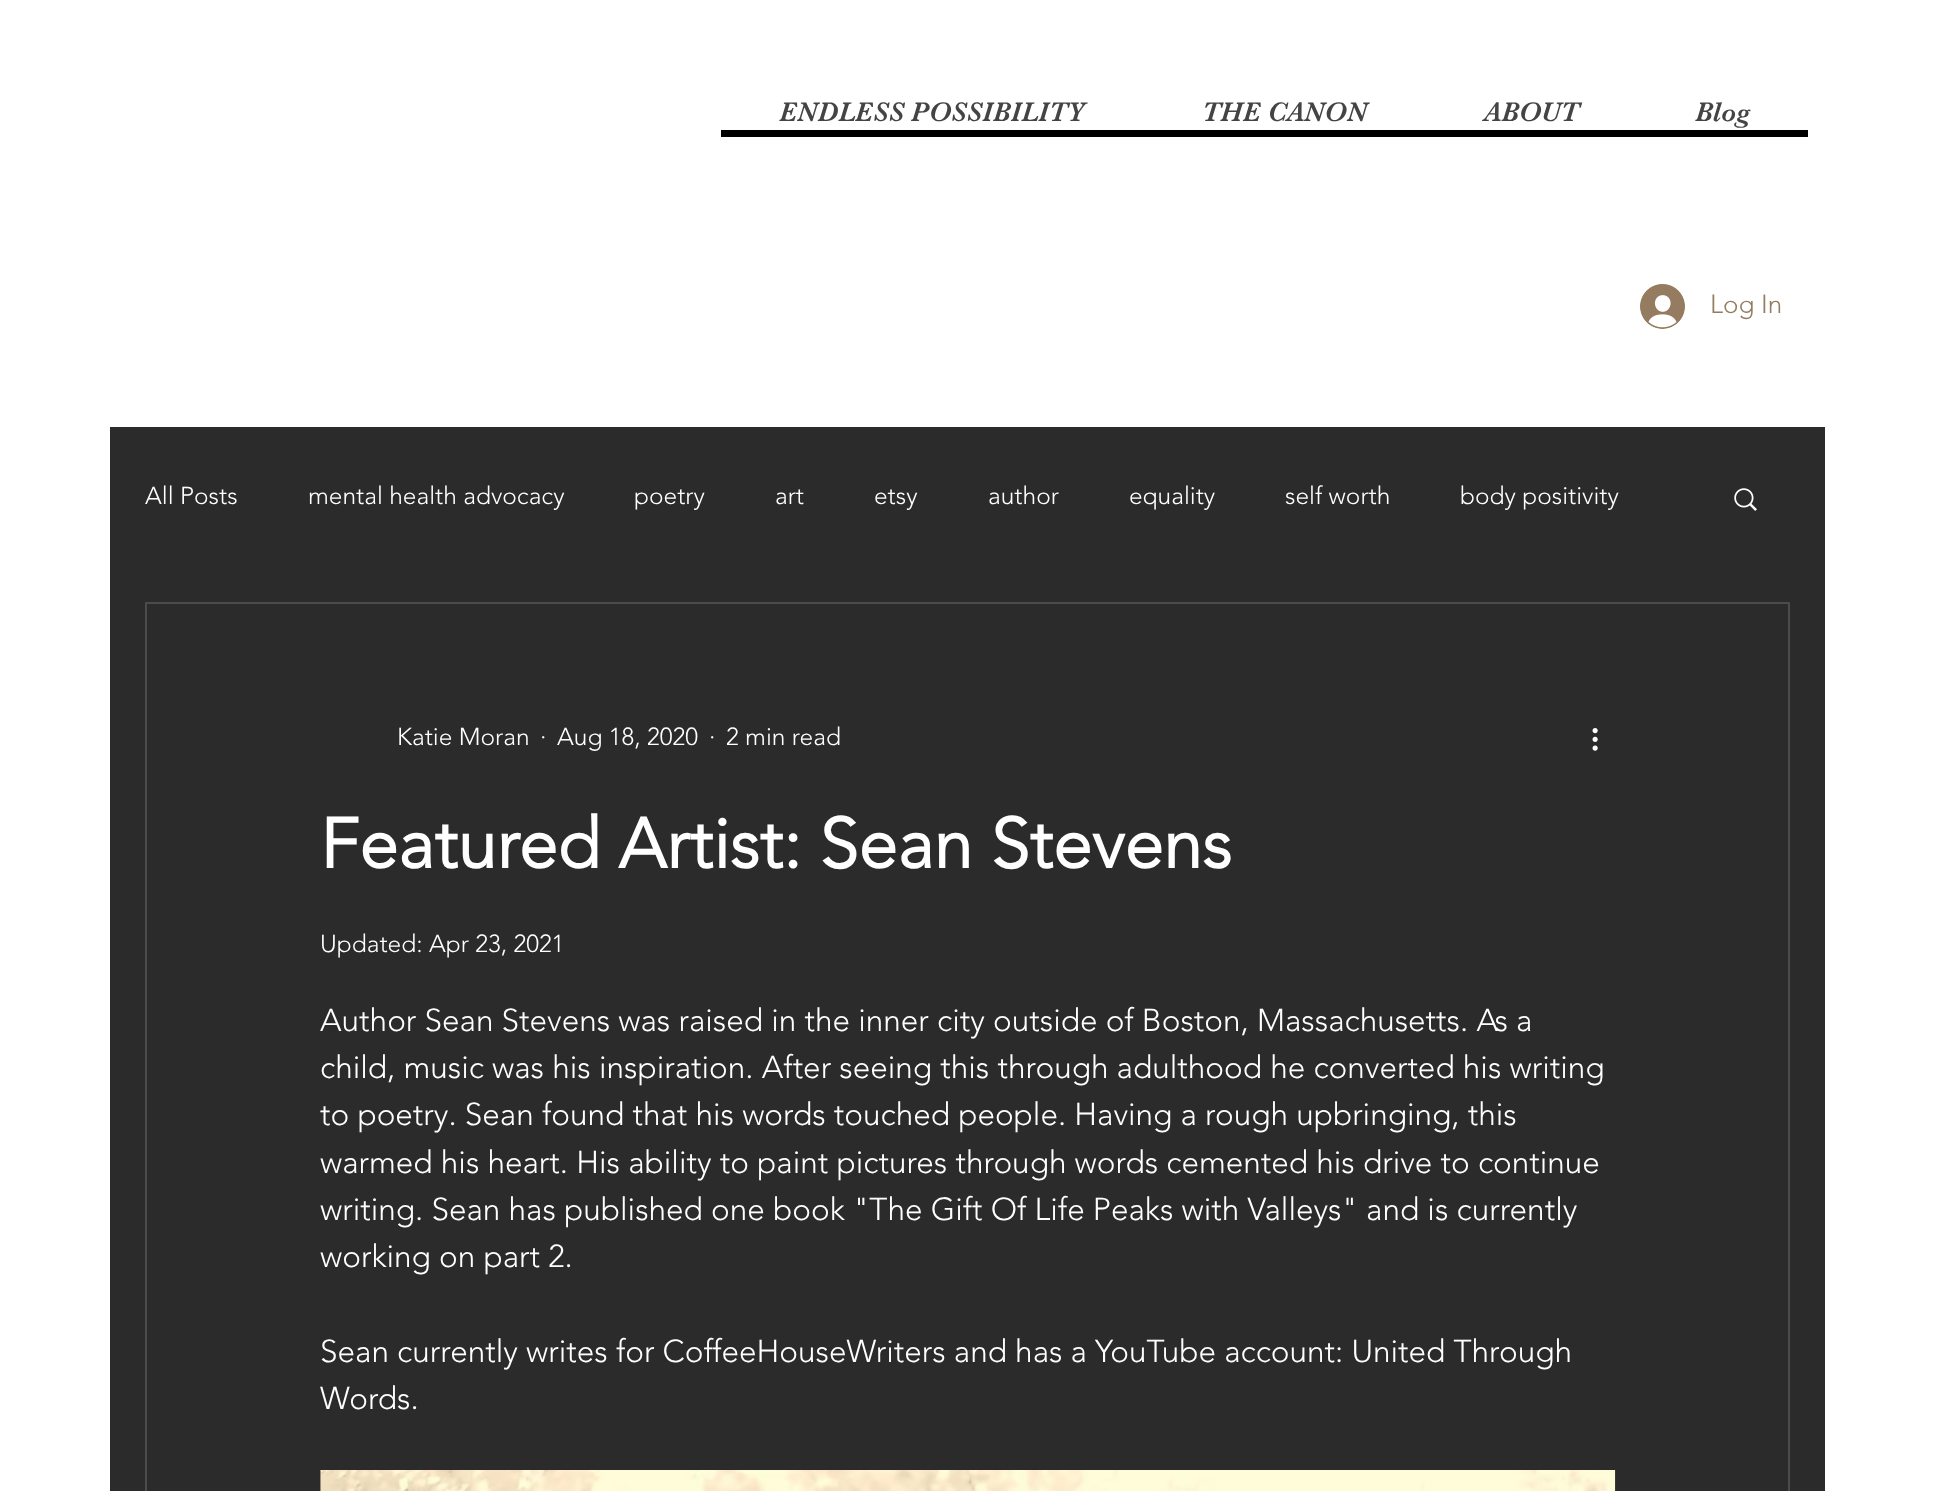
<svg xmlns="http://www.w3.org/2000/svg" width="1935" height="1491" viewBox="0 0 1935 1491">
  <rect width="100%" height="100%" fill="rgb(255,255,255)"/>
  <path d="M721 130V137H1808V102V130Z" fill="rgb(0,0,0)"/>
  <g font-family="'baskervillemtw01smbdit'" font-size="28" fill="rgb(68,68,68)">
    <text x="779" y="121">ENDLESS POSSIBILITY</text>
    <text x="1202" y="121">THE CANON</text>
    <text x="1484" y="121">ABOUT</text>
    <text x="1695" y="121">Blog</text>
  </g>
  <image x="1640" y="284" width="45" height="45" href="pic1.png"/>
  <text x="1710" y="313" font-family="'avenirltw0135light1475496'" font-size="26" font-weight="300" fill="rgb(149,123,95)">Log In</text>
  <rect x="110" y="427" width="1715" height="1064" fill="rgb(43,43,43)"/>
  <g font-family="'avenirltw0135light1475496'" font-size="24.5" font-weight="300" fill="rgb(255,255,255)">
    <text x="145" y="504">All Posts</text>
    <text x="308" y="504">mental health advocacy</text>
    <text x="634" y="504">poetry</text>
    <text x="775" y="504">art</text>
    <text x="874" y="504">etsy</text>
    <text x="988" y="504">author</text>
    <text x="1129" y="504">equality</text>
    <text x="1285" y="504">self worth</text>
    <text x="1460" y="504">body positivity</text>
  </g>
  <image x="1734" y="488" width="23" height="23" href="pic2.png"/>
  <rect x="146" y="603" width="1643" height="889" fill="none" stroke="rgb(75,75,75)" stroke-width="2"/>
  <g font-family="'avenirltw0135light1475496'" font-size="24.5" font-weight="300" fill="rgb(255,255,255)">
    <text x="397" y="745">Katie Moran</text>
    <text x="540" y="745">·</text>
    <text x="557" y="745">Aug 18, 2020</text>
    <text x="709" y="745">·</text>
    <text x="726" y="745">2 min read</text>
  </g>
  <image x="1592" y="728" width="6" height="23" href="pic3.png"/>
  <text x="320" y="868" font-family="'avenirltw0135light1475496'" font-size="70" font-weight="bold" fill="rgb(255,255,255)">Featured Artist: Sean Stevens</text>
  <text x="320" y="952" font-family="'avenirltw0135light1475496'" font-size="24.5" font-weight="300" fill="rgb(255,255,255)">Updated: Apr 23, 2021</text>
  <g font-family="'avenirltw0135light1475496'" font-size="31.5" font-weight="300" fill="rgb(255,255,255)">
    <text>
      <tspan x="320" y="1031">Author Sean Stevens was raised in the inner city outside of Boston, Massachusetts. As a</tspan>
      <tspan x="320" y="1078">child, music was his inspiration. After seeing this through adulthood he converted his writing</tspan>
      <tspan x="320" y="1125">to poetry. Sean found that his words touched people. Having a rough upbringing, this</tspan>
      <tspan x="320" y="1173">warmed his heart. His ability to paint pictures through words cemented his drive to continue</tspan>
      <tspan x="320" y="1220">writing. Sean has published one book "The Gift Of Life Peaks with Valleys" and is currently</tspan>
      <tspan x="320" y="1267">working on part 2.</tspan>
    </text>
    <text>
      <tspan x="320" y="1362">Sean currently writes for CoffeeHouseWriters and has a YouTube account: United Through</tspan>
      <tspan x="320" y="1409">Words.</tspan>
    </text>
  </g>
  <image x="320" y="1470" width="1296" height="21" href="pic4.png"/>
</svg>
